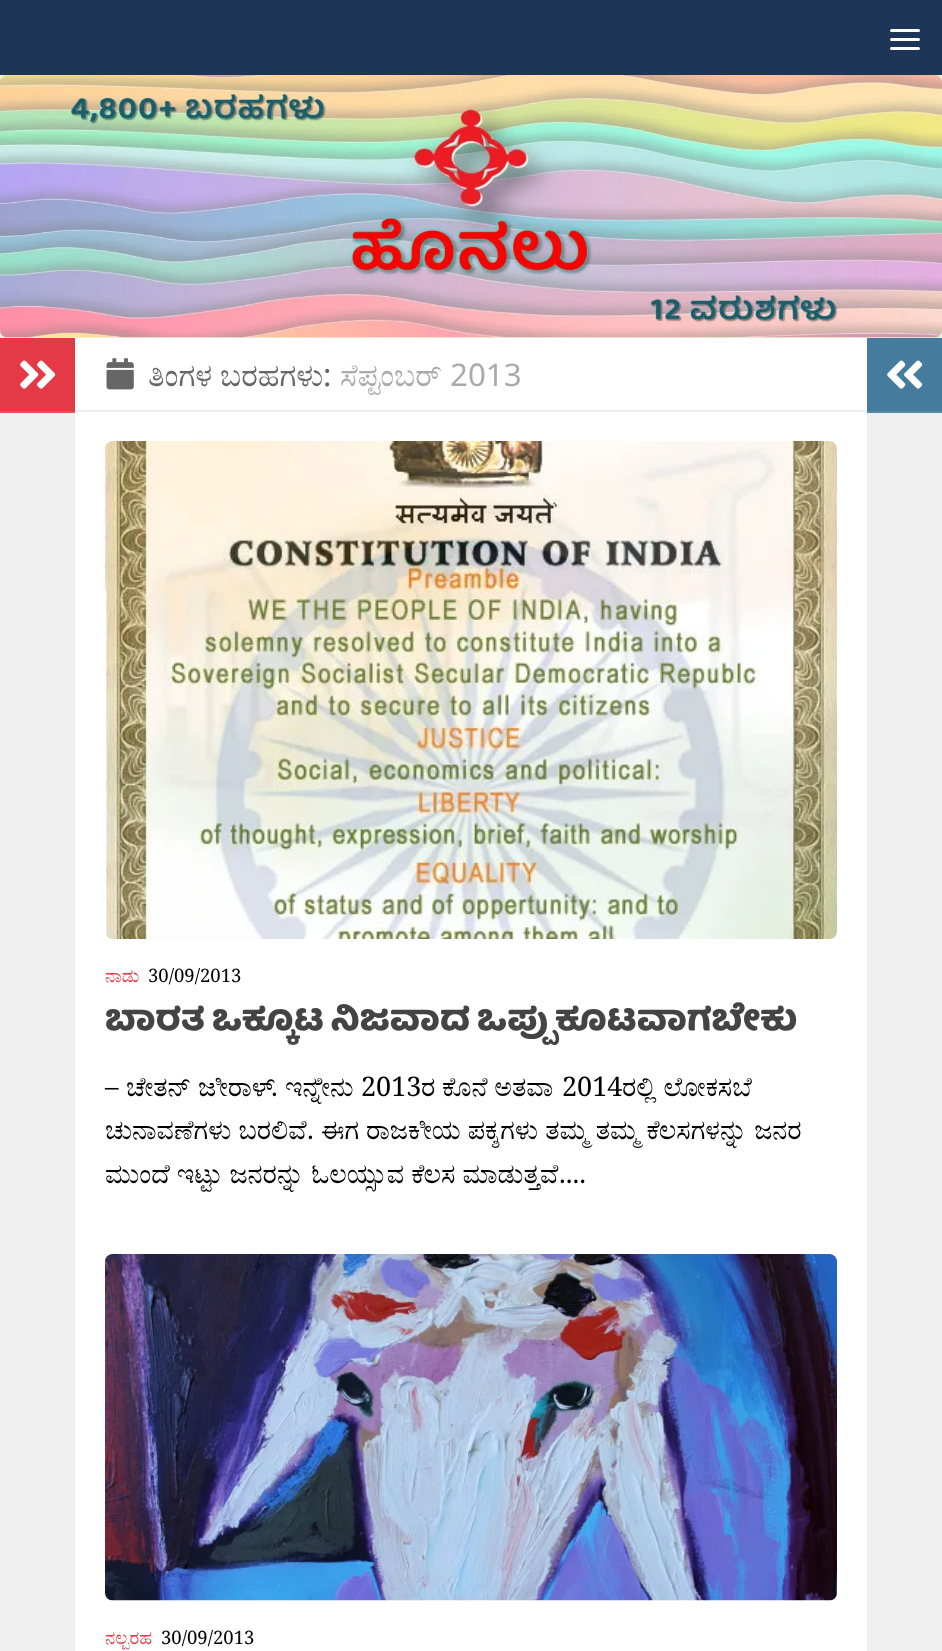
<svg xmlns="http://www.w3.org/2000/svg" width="942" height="1651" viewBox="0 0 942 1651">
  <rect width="100%" height="100%" fill="rgb(255,255,255)"/>
  <rect x="0" y="75" width="942" height="263" fill="rgb(230,242,215)"/>
  <rect x="0" y="0" width="942" height="75" fill="rgb(29,53,87)"/>
  <rect x="890" y="29" width="30" height="3" rx="1.5" fill="rgb(255,255,255)"/>
  <rect x="890" y="38" width="30" height="3" rx="1.5" fill="rgb(255,255,255)"/>
  <rect x="890" y="47" width="30" height="3" rx="1.5" fill="rgb(255,255,255)"/>
  <image x="0" y="75" width="942" height="263" href="pic1.png"/>
  <rect x="0" y="413" width="75" height="1238" fill="rgb(240,240,240)"/>
  <rect x="0" y="338" width="75" height="73" fill="rgb(230,57,70)"/>
  <rect x="0" y="411" width="75" height="2" fill="rgb(233,77,89)"/>
  <image x="20" y="360" width="36" height="29" href="pic2.png"/>
  <rect x="75" y="410" width="792" height="2" fill="rgb(238,238,238)"/>
  <image x="106" y="358" width="28" height="32" href="pic3.png"/>
  <text x="148" y="386" font-family="FreeSerif" font-size="31.25" fill="rgb(102,102,102)">ತಿಂಗಳ ಬರಹಗಳು</text>
  <text x="323" y="386" font-family="Noto Sans" font-size="31.25" fill="rgb(102,102,102)">:</text>
  <text x="340" y="386" font-family="FreeSerif" font-size="31.25" fill="rgb(170,170,170)">ಸೆಪ್ಟಂಬರ್</text>
  <text x="450" y="386" font-family="Noto Sans" font-size="31.25" fill="rgb(170,170,170)">2013</text>
  <image x="105" y="441" width="732" height="498" href="pic4.png"/>
  <text x="105" y="982" font-family="FreeSerif" font-size="18.5" fill="rgb(230,57,70)">ನಾಡು</text>
  <text x="148" y="982" font-family="Noto Serif" font-size="18.5" fill="rgb(0,0,0)">30/09/2013</text>
  <text x="105" y="1030" word-spacing="-2" font-family="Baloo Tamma" font-size="35.4" fill="rgb(68,68,68)">ಬಾರತ ಒಕ್ಕೂಟ ನಿಜವಾದ ಒಪ್ಪುಕೂಟವಾಗಬೇಕು</text>
  <text x="105" y="1096" font-family="Noto Serif" font-size="27" fill="rgb(0,0,0)">–</text>
  <g font-family="FreeSerif" font-size="27" fill="rgb(0,0,0)">
    <text x="126" y="1096">ಚೇತನ್ ಜೀರಾಳ್</text>
    <text x="285" y="1096">ಇನ್ನೇನು</text>
  </g>
  <text x="361" y="1096" font-family="Noto Serif" font-size="27" fill="rgb(0,0,0)">2013</text>
  <text x="421" y="1096" font-family="FreeSerif" font-size="27" fill="rgb(0,0,0)">ರ ಕೊನೆ ಅತವಾ</text>
  <text x="562" y="1096" font-family="Noto Serif" font-size="27" fill="rgb(0,0,0)">2014</text>
  <text x="622" y="1096" font-family="FreeSerif" font-size="27" fill="rgb(0,0,0)">ರಲ್ಲಿ ಲೋಕಸಬೆ</text>
  <text x="271" y="1096" font-family="Noto Serif" font-size="27" fill="rgb(0,0,0)">.</text>
  <text x="105" y="1139" word-spacing="0.25" font-family="FreeSerif" font-size="27" fill="rgb(0,0,0)">ಚುನಾವಣೆಗಳು ಬರಲಿವೆ</text>
  <text x="307" y="1139" font-family="Noto Serif" font-size="27" fill="rgb(0,0,0)">.</text>
  <g font-family="FreeSerif" font-size="27" fill="rgb(0,0,0)">
    <text x="321" y="1139" word-spacing="0.25">ಈಗ ರಾಜಕೀಯ ಪಕ್ಶಗಳು ತಮ್ಮ ತಮ್ಮ ಕೆಲಸಗಳನ್ನು ಜನರ</text>
    <text x="105" y="1183" word-spacing="0.25">ಮುಂದೆ ಇಟ್ಟು ಜನರನ್ನು ಓಲಯ್ಸುವ ಕೆಲಸ ಮಾಡುತ್ತವೆ</text>
  </g>
  <text x="559" y="1183" font-family="Noto Serif" font-size="27" fill="rgb(0,0,0)">....</text>
  <image x="105" y="1254" width="732" height="347" href="pic5.png"/>
  <text x="105" y="1644" font-family="FreeSerif" font-size="18.5" fill="rgb(230,57,70)">ನಲ್ಬರಹ</text>
  <text x="161" y="1644" font-family="Noto Serif" font-size="18.5" fill="rgb(0,0,0)">30/09/2013</text>
  <rect x="867" y="338" width="75" height="73" fill="rgb(69,123,157)"/>
  <rect x="867" y="411" width="75" height="2" fill="rgb(88,136,167)"/>
  <image x="887" y="360" width="36" height="29" href="pic6.png"/>
  <rect x="867" y="413" width="75" height="1238" fill="rgb(240,240,240)"/>
</svg>
